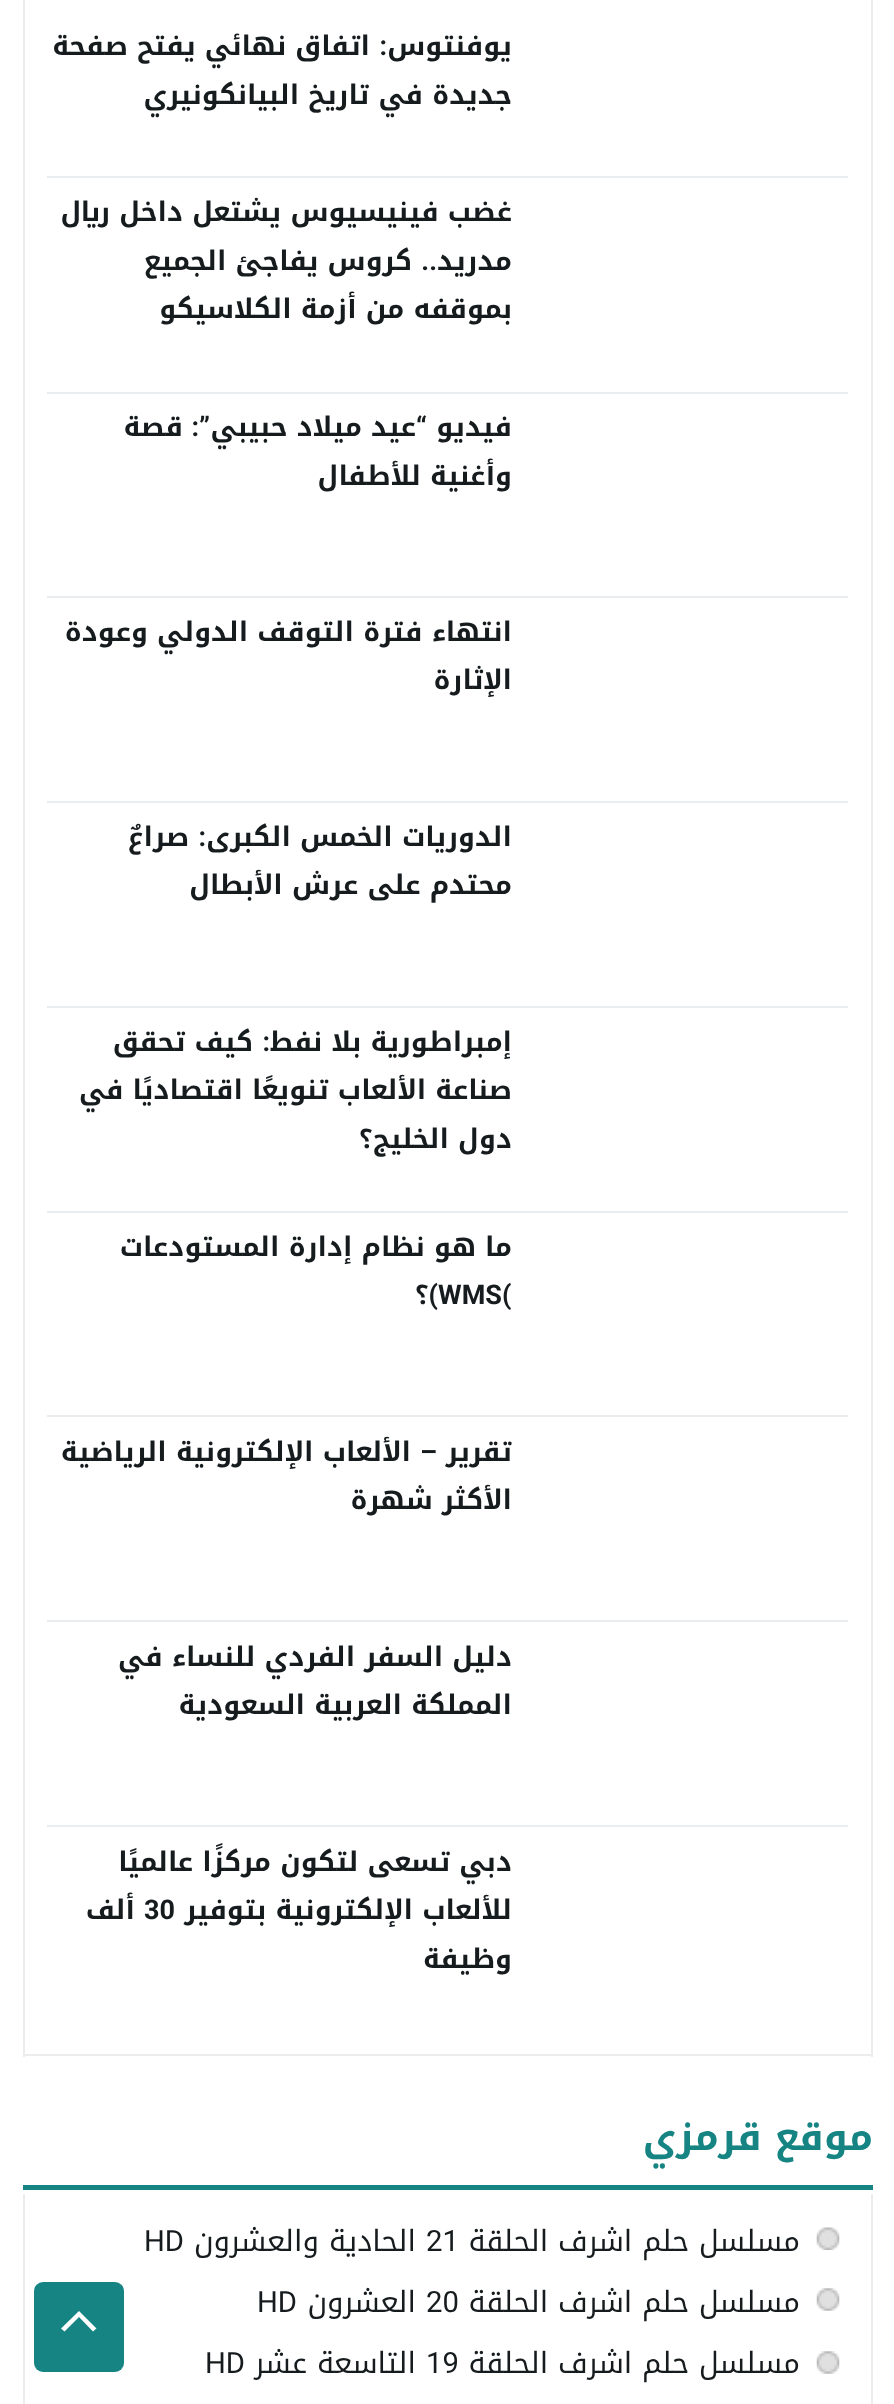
<svg xmlns="http://www.w3.org/2000/svg" width="894" height="2404" viewBox="0 0 894 2404">
  <rect width="100%" height="100%" fill="rgb(255,255,255)"/>
  <rect x="871" y="0" width="2" height="2057" fill="rgb(235,237,239)"/>
  <rect x="23" y="2054" width="850" height="2" fill="rgb(235,237,239)"/>
  <rect x="23" y="0" width="2" height="2057" fill="rgb(235,237,239)"/>
  <rect x="47" y="176" width="801" height="2" fill="rgb(233,237,240)"/>
  <text x="512" y="55" font-family="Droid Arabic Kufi" font-size="27" font-weight="bold" direction="rtl" fill="rgb(22,27,30)">يوفنتوس</text>
  <text x="387" y="55" font-family="Roboto" font-size="27" font-weight="bold" direction="rtl" fill="rgb(22,27,30)">:</text>
  <g font-family="Droid Arabic Kufi" font-size="27" font-weight="bold" direction="rtl" fill="rgb(22,27,30)">
    <text x="370" y="55">اتفاق نهائي يفتح صفحة</text>
    <text x="512" y="104">جديدة في تاريخ البيانكونيري</text>
  </g>
  <rect x="47" y="392" width="801" height="2" fill="rgb(233,237,240)"/>
  <g font-family="Droid Arabic Kufi" font-size="27" font-weight="bold" direction="rtl" fill="rgb(22,27,30)">
    <text>
      <tspan x="512" y="221">غضب فينيسيوس يشتعل داخل ريال</tspan>
      <tspan x="512" y="270">مدريد</tspan>
    </text>
  </g>
  <text x="437" y="270" font-family="Roboto" font-size="27" font-weight="bold" direction="rtl" fill="rgb(22,27,30)">..</text>
  <g font-family="Droid Arabic Kufi" font-size="27" font-weight="bold" direction="rtl" fill="rgb(22,27,30)">
    <text x="412" y="270">كروس يفاجئ الجميع</text>
    <text x="512" y="318">بموقفه من أزمة الكلاسيكو</text>
  </g>
  <rect x="47" y="596" width="801" height="2" fill="rgb(233,237,240)"/>
  <text x="512" y="436" font-family="Droid Arabic Kufi" font-size="27" font-weight="bold" direction="rtl" fill="rgb(22,27,30)">فيديو</text>
  <text x="427" y="436" font-family="Roboto" font-size="27" font-weight="bold" direction="rtl" fill="rgb(22,27,30)">“</text>
  <text x="416" y="436" font-family="Droid Arabic Kufi" font-size="27" font-weight="bold" direction="rtl" fill="rgb(22,27,30)">عيد ميلاد حبيبي</text>
  <text x="210" y="436" font-family="Roboto" font-size="27" font-weight="bold" direction="rtl" fill="rgb(22,27,30)">”:</text>
  <g font-family="Droid Arabic Kufi" font-size="27" font-weight="bold" direction="rtl" fill="rgb(22,27,30)">
    <text x="183" y="436">قصة</text>
    <text x="512" y="485">وأغنية للأطفال</text>
  </g>
  <rect x="47" y="801" width="801" height="2" fill="rgb(233,237,240)"/>
  <g font-family="Droid Arabic Kufi" font-size="27" font-weight="bold" direction="rtl" fill="rgb(22,27,30)">
    <text>
      <tspan x="512" y="641">انتهاء فترة التوقف الدولي وعودة</tspan>
      <tspan x="512" y="689">الإثارة</tspan>
    </text>
  </g>
  <rect x="47" y="1006" width="801" height="2" fill="rgb(233,237,240)"/>
  <text x="512" y="846" font-family="Droid Arabic Kufi" font-size="27" font-weight="bold" direction="rtl" fill="rgb(22,27,30)">الدوريات الخمس الكبرى</text>
  <text x="206" y="846" font-family="Roboto" font-size="27" font-weight="bold" direction="rtl" fill="rgb(22,27,30)">:</text>
  <g font-family="Droid Arabic Kufi" font-size="27" font-weight="bold" direction="rtl" fill="rgb(22,27,30)">
    <text x="189" y="846">صراعٌ</text>
    <text x="512" y="894">محتدم على عرش الأبطال</text>
  </g>
  <rect x="47" y="1211" width="801" height="2" fill="rgb(233,237,240)"/>
  <text x="512" y="1051" font-family="Droid Arabic Kufi" font-size="27" font-weight="bold" direction="rtl" fill="rgb(22,27,30)">إمبراطورية بلا نفط</text>
  <text x="270" y="1051" font-family="Roboto" font-size="27" font-weight="bold" direction="rtl" fill="rgb(22,27,30)">:</text>
  <g font-family="Droid Arabic Kufi" font-size="27" font-weight="bold" direction="rtl" fill="rgb(22,27,30)">
    <text x="253" y="1051">كيف تحقق</text>
    <text>
      <tspan x="512" y="1099">صناعة الألعاب تنويعًا اقتصاديًا في</tspan>
      <tspan x="512" y="1148">دول الخليج؟</tspan>
    </text>
  </g>
  <rect x="47" y="1415" width="801" height="2" fill="rgb(233,237,240)"/>
  <text x="512" y="1256" font-family="Droid Arabic Kufi" font-size="27" font-weight="bold" direction="rtl" fill="rgb(22,27,30)">ما هو نظام إدارة المستودعات</text>
  <text x="438" y="1304" font-family="Roboto" font-size="27" font-weight="bold" fill="rgb(22,27,30)">WMS(</text>
  <text x="438" y="1304" font-family="Roboto" font-size="27" font-weight="bold" direction="rtl" fill="rgb(22,27,30)">)</text>
  <text x="429" y="1304" font-family="Droid Arabic Kufi" font-size="27" font-weight="bold" direction="rtl" fill="rgb(22,27,30)">؟</text>
  <rect x="47" y="1620" width="801" height="2" fill="rgb(233,237,240)"/>
  <text x="512" y="1461" font-family="Droid Arabic Kufi" font-size="27" font-weight="bold" direction="rtl" fill="rgb(22,27,30)">تقرير</text>
  <text x="437" y="1461" font-family="Roboto" font-size="27" font-weight="bold" direction="rtl" fill="rgb(22,27,30)">–</text>
  <g font-family="Droid Arabic Kufi" font-size="27" font-weight="bold" direction="rtl" fill="rgb(22,27,30)">
    <text x="411" y="1461">الألعاب الإلكترونية الرياضية</text>
    <text x="512" y="1509">الأكثر شهرة</text>
  </g>
  <rect x="47" y="1825" width="801" height="2" fill="rgb(233,237,240)"/>
  <g font-family="Droid Arabic Kufi" font-size="27" font-weight="bold" direction="rtl" fill="rgb(22,27,30)">
    <text>
      <tspan x="512" y="1666">دليل السفر الفردي للنساء في</tspan>
      <tspan x="512" y="1714">المملكة العربية السعودية</tspan>
    </text>
    <text>
      <tspan x="512" y="1871">دبي تسعى لتكون مركزًا عالميًا</tspan>
      <tspan x="512" y="1919">للألعاب الإلكترونية بتوفير</tspan>
    </text>
  </g>
  <text x="144" y="1919" font-family="Roboto" font-size="27" font-weight="bold" fill="rgb(22,27,30)">30</text>
  <g font-family="Droid Arabic Kufi" font-size="27" font-weight="bold" direction="rtl" fill="rgb(22,27,30)">
    <text x="135" y="1919">ألف</text>
    <text x="512" y="1968">وظيفة</text>
  </g>
  <rect x="23" y="2185" width="850" height="5" fill="rgb(21,132,130)"/>
  <text x="873" y="2150" font-family="Droid Arabic Kufi" font-size="38.25" font-weight="bold" direction="rtl" fill="rgb(21,132,130)">موقع قرمزي</text>
  <rect x="871" y="2194" width="2" height="210" fill="rgb(235,237,239)"/>
  <rect x="23" y="2194" width="2" height="210" fill="rgb(235,237,239)"/>
  <image x="816" y="2227" width="24" height="23" href="pic1.png"/>
  <text x="800" y="2251" font-family="Droid Arabic Kufi" font-size="29.25" direction="rtl" fill="rgb(22,27,30)">مسلسل حلم اشرف الحلقة</text>
  <text x="426" y="2251" font-family="Roboto" font-size="29.25" fill="rgb(22,27,30)">21</text>
  <text x="416" y="2251" font-family="Droid Arabic Kufi" font-size="29.25" direction="rtl" fill="rgb(22,27,30)">الحادية والعشرون</text>
  <text x="144" y="2251" font-family="Roboto" font-size="29.25" fill="rgb(22,27,30)">HD</text>
  <image x="816" y="2288" width="24" height="23" href="pic2.png"/>
  <text x="800" y="2312" font-family="Droid Arabic Kufi" font-size="29.25" direction="rtl" fill="rgb(22,27,30)">مسلسل حلم اشرف الحلقة</text>
  <text x="426" y="2312" font-family="Roboto" font-size="29.25" fill="rgb(22,27,30)">20</text>
  <text x="416" y="2312" font-family="Droid Arabic Kufi" font-size="29.25" direction="rtl" fill="rgb(22,27,30)">العشرون</text>
  <text x="257" y="2312" font-family="Roboto" font-size="29.25" fill="rgb(22,27,30)">HD</text>
  <image x="816" y="2351" width="24" height="23" href="pic2.png"/>
  <text x="800" y="2373" font-family="Droid Arabic Kufi" font-size="29.25" direction="rtl" fill="rgb(22,27,30)">مسلسل حلم اشرف الحلقة</text>
  <text x="426" y="2373" font-family="Roboto" font-size="29.25" fill="rgb(22,27,30)">19</text>
  <text x="416" y="2373" font-family="Droid Arabic Kufi" font-size="29.25" direction="rtl" fill="rgb(22,27,30)">التاسعة عشر</text>
  <text x="205" y="2373" font-family="Roboto" font-size="29.25" fill="rgb(22,27,30)">HD</text>
  <rect x="34" y="2282" width="90" height="90" rx="9" fill="rgb(21,132,130)"/>
  <path d="M96.5 2328.5L93 2331.5L79 2317L64.5 2331.5L61 2328.5L79 2311Z" fill="rgb(255,255,255)"/>
</svg>
